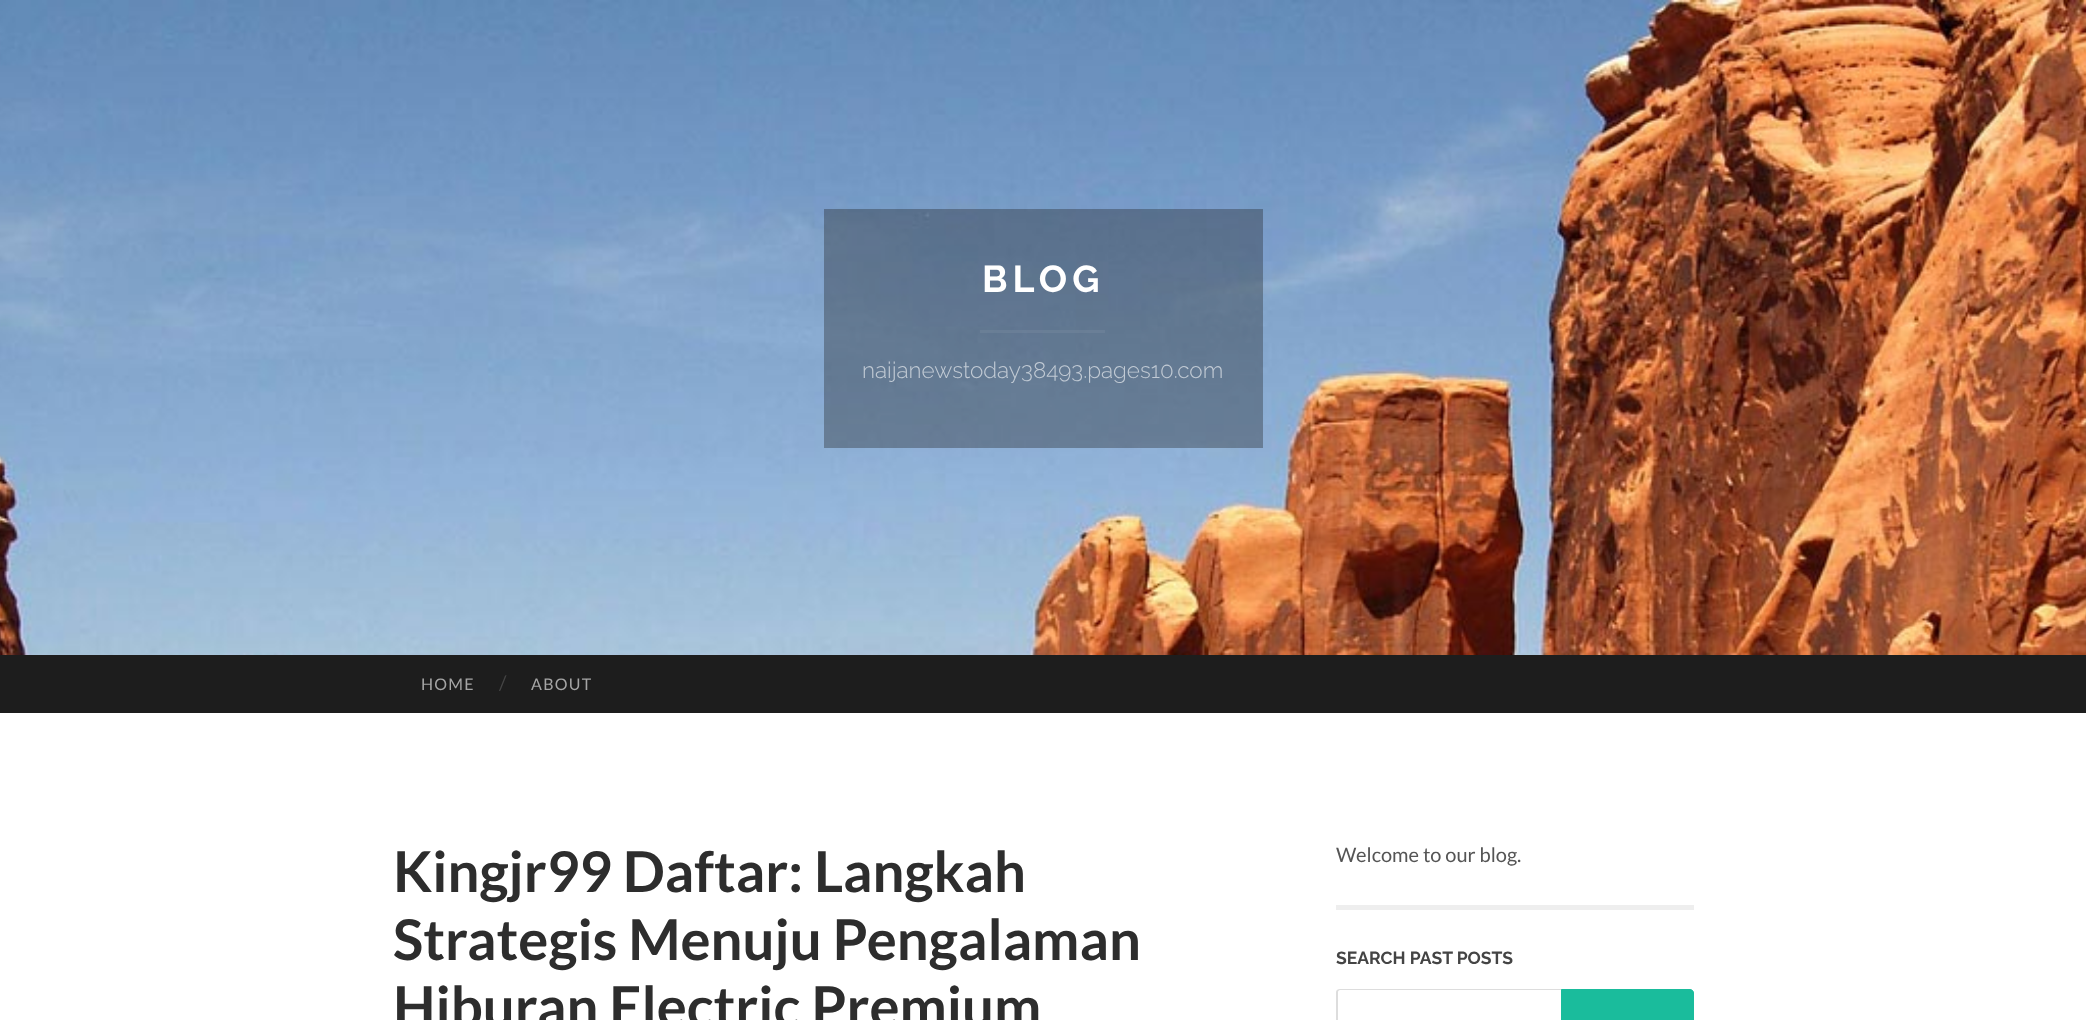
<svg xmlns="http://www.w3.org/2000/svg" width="2086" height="1020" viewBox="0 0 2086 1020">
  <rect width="100%" height="100%" fill="rgb(255,255,255)"/>
  <image x="0" y="0" width="2086" height="655" href="pic1.png"/>
  <rect x="824" y="209" width="439" height="239" fill="rgba(29,29,29,0.34)"/>
  <text x="982" y="292" font-family="Raleway" font-size="37.5" font-weight="bold" letter-spacing="5" fill="rgb(255,255,255)">BLOG</text>
  <rect x="980" y="330" width="125" height="3" fill="rgba(255,255,255,0.06)"/>
  <text x="862" y="378" font-family="Raleway" font-size="22.5" font-weight="300" fill="rgb(193,202,212)">naijanewstoday38493.pages10.com</text>
  <rect x="0" y="655" width="2086" height="58" fill="rgb(29,29,29)"/>
  <text x="421" y="690" font-family="Lato" font-size="16" letter-spacing="1.25" fill="rgb(165,165,165)">HOME</text>
  <text x="499" y="690" font-family="Lato" font-size="20" fill="rgb(68,68,68)">/</text>
  <text x="531" y="690" font-family="Lato" font-size="16" letter-spacing="1.25" fill="rgb(165,165,165)">ABOUT</text>
  <g font-family="Lato" font-size="56.25" font-weight="bold" fill="rgb(45,45,45)">
    <text>
      <tspan x="393" y="892">Kingjr99 Daftar: Langkah</tspan>
      <tspan x="393" y="960">Strategis Menuju Pengalaman</tspan>
      <tspan x="393" y="1027">Hiburan Electric Premium</tspan>
    </text>
  </g>
  <rect x="1336" y="905" width="358" height="5" fill="rgb(238,238,238)"/>
  <text x="1336" y="862" font-family="Lato" font-size="20" fill="rgb(85,85,85)">Welcome to our blog.</text>
  <text x="1336" y="964" font-family="Raleway" font-size="17.5" font-weight="bold" fill="rgb(68,68,68)">SEARCH PAST POSTS</text>
  <path d="M1340 989H1690V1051H1340C1338 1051 1336 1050 1336 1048V992C1336 990 1338 989 1340 989ZM1340 990H1690V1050H1340C1339 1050 1338 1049 1338 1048V992C1338 991 1339 990 1340 990Z" fill="rgb(221,221,221)" fill-rule="evenodd"/>
  <path d="M1561.5 989.5H1690C1692 989.5 1693.5 991 1693.5 993V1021C1693.5 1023 1692 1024.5 1690 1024.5H1561.5Z" fill="rgb(26,188,156)" stroke="rgb(26,188,156)"/>
</svg>
